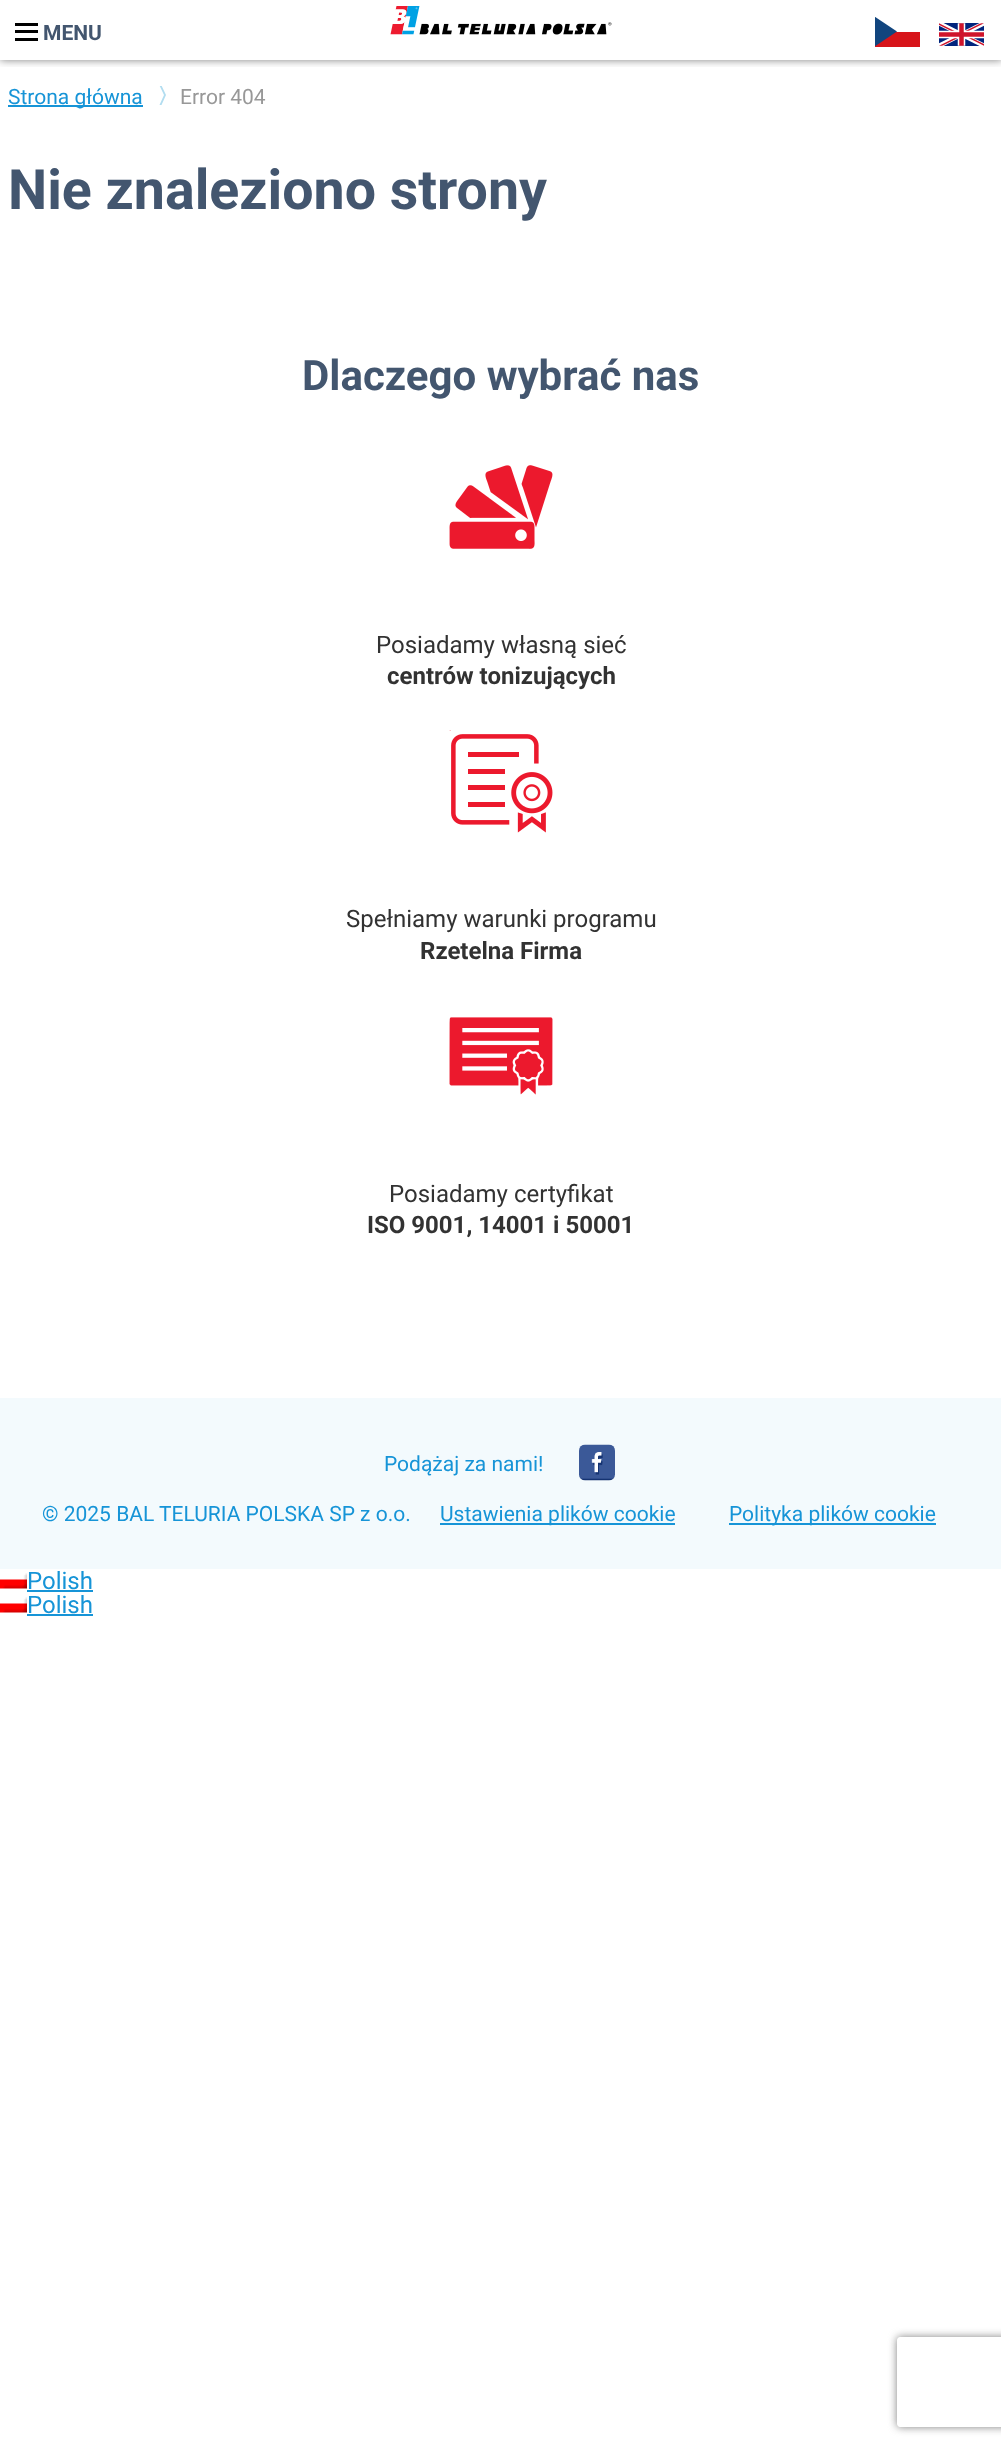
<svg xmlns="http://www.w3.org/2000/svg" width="1001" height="2448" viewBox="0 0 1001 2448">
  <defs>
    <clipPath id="clip1"><rect x="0" y="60" width="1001" height="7"/></clipPath>
    <clipPath id="clip2"><rect x="875" y="17" width="45" height="30"/></clipPath>
    <clipPath id="clip3"><rect x="159" y="86" width="8" height="19"/></clipPath>
    <clipPath id="clip4"><path d="M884 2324H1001V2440H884ZM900 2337H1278C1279.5 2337 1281 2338.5 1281 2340V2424C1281 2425.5 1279.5 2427 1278 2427H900C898.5 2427 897 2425.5 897 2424V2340C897 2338.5 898.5 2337 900 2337Z" clip-rule="evenodd"/></clipPath>
  </defs>
  <rect width="100%" height="100%" fill="rgb(255,255,255)"/>
  <g clip-path="url(#clip1)">
    <rect x="0" y="0" width="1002" height="60" fill="rgba(0,0,0,0.5)" filter="blur(4px)"/>
  </g>
  <rect x="15" y="38" width="23" height="3" fill="rgb(0,0,0)"/>
  <rect x="15" y="23" width="23" height="3" fill="rgb(0,0,0)"/>
  <rect x="15" y="30" width="23" height="3" fill="rgb(0,0,0)"/>
  <text x="43" y="40" font-family="Roboto" font-size="21" font-weight="bold" fill="rgb(67,86,111)">MENU</text>
  <image x="390" y="6" width="222" height="29" href="pic1.png"/>
  <rect x="875" y="32" width="45" height="15" fill="rgb(215,20,26)"/>
  <g clip-path="url(#clip2)">
    <path d="M897 31.5L874.5 16.5V46.5Z" fill="rgb(17,69,126)"/>
  </g>
  <image x="939" y="23" width="45" height="23" href="pic2.png"/>
  <rect x="8" y="105" width="135" height="2" fill="rgb(22,148,215)"/>
  <text x="8" y="104" font-family="Roboto" font-size="21" fill="rgb(22,148,215)">Strona główna</text>
  <g clip-path="url(#clip3)">
    <path d="M161.5 85.5H159.5L164 95L159.5 105H161.5L166 95Z" fill="rgb(178,221,240)"/>
  </g>
  <text x="180" y="104" font-family="Roboto" font-size="21" fill="rgb(152,152,152)">Error 404</text>
  <text x="8" y="209" font-family="Roboto" font-size="55.5" font-weight="bold" fill="rgb(67,86,111)">Nie znaleziono strony</text>
  <text x="302" y="390" font-family="Roboto" font-size="42" font-weight="bold" fill="rgb(67,86,111)">Dlaczego wybrać nas</text>
  <image x="449" y="465" width="104" height="84" href="pic3.png"/>
  <text x="376" y="653" font-family="Roboto" font-size="24" fill="rgb(50,50,50)">Posiadamy własną sieć</text>
  <text x="387" y="684" font-family="Roboto" font-size="24" font-weight="bold" fill="rgb(50,50,50)">centrów tonizujących</text>
  <image x="449" y="730" width="104" height="103" href="pic4.png"/>
  <text x="346" y="927" font-family="Roboto" font-size="24" fill="rgb(50,50,50)">Spełniamy warunki programu</text>
  <text x="420" y="959" font-family="Roboto" font-size="24" font-weight="bold" fill="rgb(50,50,50)">Rzetelna Firma</text>
  <image x="449" y="1017" width="104" height="78" href="pic5.png"/>
  <text x="389" y="1202" font-family="Roboto" font-size="24" fill="rgb(50,50,50)">Posiadamy certyfikat</text>
  <text x="367" y="1233" font-family="Roboto" font-size="24" font-weight="bold" fill="rgb(50,50,50)">ISO 9001, 14001 i 50001</text>
  <rect x="0" y="1398" width="1001" height="171" fill="rgb(243,250,253)"/>
  <text x="384" y="1471" font-family="Roboto" font-size="21" fill="rgb(22,148,215)">Podążaj za nami!</text>
  <image x="579" y="1444" width="36" height="37" href="pic6.png"/>
  <text x="42" y="1521" font-family="Roboto" font-size="21" fill="rgb(22,148,215)">© 2025 BAL TELURIA POLSKA SP z o.o.</text>
  <rect x="440" y="1523" width="235" height="2" fill="rgb(22,148,215)"/>
  <text x="440" y="1521" font-family="Roboto" font-size="21" fill="rgb(22,148,215)">Ustawienia plików cookie</text>
  <rect x="729" y="1523" width="207" height="2" fill="rgb(22,148,215)"/>
  <text x="729" y="1521" font-family="Roboto" font-size="21" fill="rgb(22,148,215)">Polityka plików cookie</text>
  <image x="0" y="1573" width="27" height="16" href="pic7.png"/>
  <text x="27" y="1589" font-family="Roboto" font-size="24" fill="rgb(22,148,215)">Polish</text>
  <rect x="27" y="1590" width="66" height="2" fill="rgb(22,148,215)"/>
  <image x="0" y="1597" width="27" height="16" href="pic7.png"/>
  <text x="27" y="1613" font-family="Roboto" font-size="24" fill="rgb(22,148,215)">Polish</text>
  <rect x="27" y="1614" width="66" height="2" fill="rgb(22,148,215)"/>
  <g clip-path="url(#clip4)">
    <rect x="897" y="2337" width="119" height="90" rx="3" fill="rgb(128,128,128)" filter="blur(4px)"/>
  </g>
</svg>
